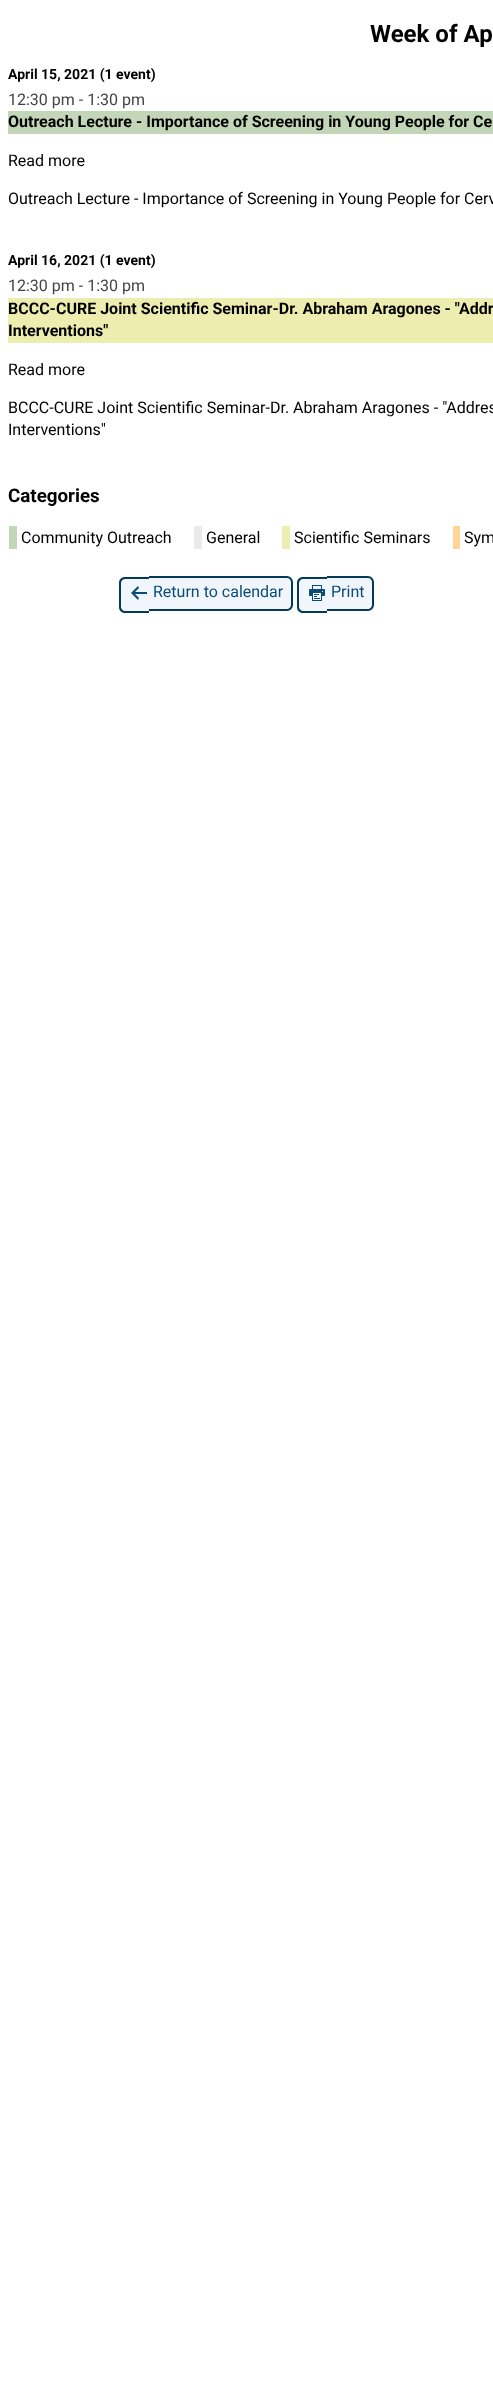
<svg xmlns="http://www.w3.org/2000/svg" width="493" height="2382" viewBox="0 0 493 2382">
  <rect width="100%" height="100%" fill="rgb(255,255,255)"/>
  <text x="370" y="42" font-family="Roboto" font-size="24" font-weight="bold" fill="rgb(0,0,0)">Week of Ap</text>
  <text x="8" y="79" font-family="Roboto" font-size="14" font-weight="bold" fill="rgb(0,0,0)">April 15, 2021 (1 event)</text>
  <text x="8" y="105" font-family="Roboto" font-size="16" fill="rgb(68,68,68)">12:30 pm - 1:30 pm</text>
  <rect x="8" y="111" width="485" height="23" fill="rgb(195,214,184)"/>
  <text x="8" y="127" font-family="Roboto" font-size="16" font-weight="bold" fill="rgb(0,0,0)">Outreach Lecture - Importance of Screening in Young People for Ce</text>
  <g font-family="Roboto" font-size="16" fill="rgb(0,0,0)">
    <text x="8" y="166">Read more</text>
    <text x="8" y="204">Outreach Lecture - Importance of Screening in Young People for Cerv</text>
  </g>
  <text x="8" y="265" font-family="Roboto" font-size="14" font-weight="bold" fill="rgb(0,0,0)">April 16, 2021 (1 event)</text>
  <text x="8" y="291" font-family="Roboto" font-size="16" fill="rgb(68,68,68)">12:30 pm - 1:30 pm</text>
  <rect x="8" y="298" width="485" height="45" fill="rgb(237,237,175)"/>
  <g font-family="Roboto" font-size="16" font-weight="bold" fill="rgb(0,0,0)">
    <text>
      <tspan x="8" y="314">BCCC-CURE Joint Scientific Seminar-Dr. Abraham Aragones - "Addr</tspan>
      <tspan x="8" y="336">Interventions"</tspan>
    </text>
  </g>
  <g font-family="Roboto" font-size="16" fill="rgb(0,0,0)">
    <text x="8" y="375">Read more</text>
    <text>
      <tspan x="8" y="413">BCCC-CURE Joint Scientific Seminar-Dr. Abraham Aragones - "Addres</tspan>
      <tspan x="8" y="435">Interventions"</tspan>
    </text>
  </g>
  <text x="8" y="502" font-family="Roboto" font-size="18.75" font-weight="bold" fill="rgb(0,0,0)">Categories</text>
  <rect x="9" y="526" width="8" height="23" fill="rgb(195,214,184)"/>
  <text x="21" y="543" font-family="Roboto" font-size="16" fill="rgb(0,0,0)">Community Outreach</text>
  <rect x="194" y="526" width="8" height="23" fill="rgb(234,234,234)"/>
  <text x="206" y="543" font-family="Roboto" font-size="16" fill="rgb(0,0,0)">General</text>
  <rect x="282" y="526" width="8" height="23" fill="rgb(237,237,175)"/>
  <text x="294" y="543" font-family="Roboto" font-size="16" fill="rgb(0,0,0)">Scientific Seminars</text>
  <rect x="453" y="526" width="7" height="23" fill="rgb(255,213,150)"/>
  <text x="464" y="543" font-family="Roboto" font-size="16" fill="rgb(0,0,0)">Sym</text>
  <path d="M125 577H149V613H125C121.5 613 119 610.5 119 607V583C119 579.5 121.5 577 125 577Z" fill="rgb(240,246,252)"/>
  <path d="M125 577H149V613H125C121.5 613 119 610.5 119 607V583C119 579.5 121.5 577 125 577ZM125 579H149V611H125C123 611 121 609 121 607V583C121 581 123 579 125 579Z" fill="rgb(4,57,89)" fill-rule="evenodd"/>
  <path d="M149 576H287C290.5 576 293 578.5 293 582V605C293 608.5 290.5 611 287 611H149Z" fill="rgb(240,246,252)"/>
  <path d="M149 576H287C290 576 293 579 293 582V605C293 608 290 611 287 611H149ZM149 578H287C289 578 291 580 291 582V605C291 607 289 609 287 609H149Z" fill="rgb(4,57,89)" fill-rule="evenodd"/>
  <image x="131" y="586" width="16" height="14" href="pic1.png"/>
  <text x="153" y="597" font-family="Roboto" font-size="16" fill="rgb(10,75,120)">Return to calendar</text>
  <path d="M303 577H327V613H303C299.5 613 297 610.5 297 607V583C297 579.5 299.5 577 303 577Z" fill="rgb(240,246,252)"/>
  <path d="M303 577H327V613H303C299.5 613 297 610.5 297 607V583C297 579.5 299.5 577 303 577ZM303 579H327V611H303C301 611 299 609 299 607V583C299 581 301 579 303 579Z" fill="rgb(4,57,89)" fill-rule="evenodd"/>
  <path d="M327 576H368C371.5 576 374 578.5 374 582V605C374 608.5 371.5 611 368 611H327Z" fill="rgb(240,246,252)"/>
  <path d="M327 576H368C371 576 374 579 374 582V605C374 608 371 611 368 611H327ZM327 578H368C370 578 372 580 372 582V605C372 607 370 609 368 609H327Z" fill="rgb(4,57,89)" fill-rule="evenodd"/>
  <image x="309" y="585" width="16" height="16" href="pic2.png"/>
  <text x="331" y="597" font-family="Roboto" font-size="16" fill="rgb(10,75,120)">Print</text>
</svg>
